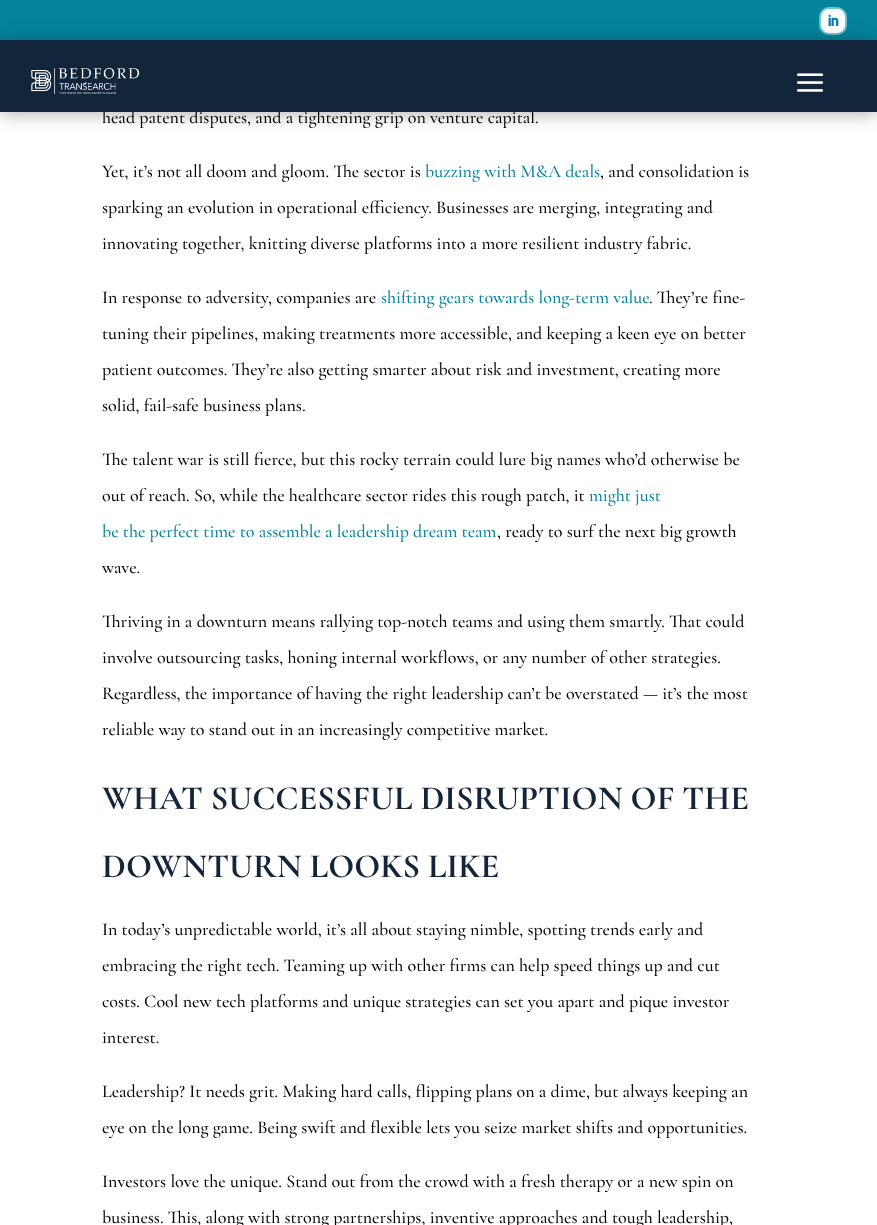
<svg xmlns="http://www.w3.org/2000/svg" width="877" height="1225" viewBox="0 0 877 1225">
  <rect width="100%" height="100%" fill="rgb(255,255,255)"/>
  <rect x="0" y="0" width="877" height="40" fill="rgb(5,131,155)"/>
  <rect x="820" y="8" width="26" height="26" rx="9" fill="rgb(255,255,255)" stroke="rgb(107,197,209)" stroke-width="2"/>
  <image x="828" y="14" width="11" height="12" href="pic3.png"/>
  <rect x="0" y="42" width="877" height="72" fill="rgba(0,0,0,0.3)" filter="blur(9px)"/>
  <text x="102" y="123" font-family="Cormorant Garamond" font-size="18" font-weight="300" fill="rgb(0,0,0)">head patent disputes, and a tightening grip on venture capital.</text>
  <rect x="0" y="40" width="877" height="72" fill="rgb(19,37,59)"/>
  <image x="31" y="67" width="109" height="27" href="pic1.png"/>
  <image x="796" y="73" width="28" height="19" href="pic2.png"/>
  <text x="102" y="177" font-family="Cormorant Garamond" font-size="18" font-weight="300" fill="rgb(0,0,0)">Yet, it’s not all doom and gloom. The sector is</text>
  <text x="425" y="177" font-family="Cormorant Garamond" font-size="18" font-weight="300" fill="rgb(5,131,155)">buzzing with M&amp;A deals</text>
  <g font-family="Cormorant Garamond" font-size="18" font-weight="300" fill="rgb(0,0,0)">
    <text x="600" y="177">, and consolidation is</text>
    <text x="102" y="213">sparking an evolution in operational efficiency. Businesses are merging, integrating and</text>
    <text x="102" y="249">innovating together, knitting diverse platforms into a more resilient industry fabric.</text>
    <text x="102" y="303">In response to adversity, companies are</text>
  </g>
  <text x="381" y="303" font-family="Cormorant Garamond" font-size="18" font-weight="300" fill="rgb(5,131,155)">shifting gears towards long-term value</text>
  <g font-family="Cormorant Garamond" font-size="18" font-weight="300" fill="rgb(0,0,0)">
    <text x="649" y="303">. They’re fine-</text>
    <text x="102" y="339">tuning their pipelines, making treatments more accessible, and keeping a keen eye on better</text>
    <text x="102" y="375">patient outcomes. They’re also getting smarter about risk and investment, creating more</text>
    <text x="102" y="411">solid, fail-safe business plans.</text>
    <text x="102" y="465">The talent war is still fierce, but this rocky terrain could lure big names who’d otherwise be</text>
    <text x="102" y="501">out of reach. So, while the healthcare sector rides this rough patch, it</text>
  </g>
  <g font-family="Cormorant Garamond" font-size="18" font-weight="300" fill="rgb(5,131,155)">
    <text x="589" y="501">might just</text>
    <text x="102" y="537">be the perfect time to assemble a leadership dream team</text>
  </g>
  <g font-family="Cormorant Garamond" font-size="18" font-weight="300" fill="rgb(0,0,0)">
    <text x="497" y="537">, ready to surf the next big growth</text>
    <text x="102" y="573">wave.</text>
    <text x="102" y="627">Thriving in a downturn means rallying top-notch teams and using them smartly. That could</text>
    <text x="102" y="663">involve outsourcing tasks, honing internal workflows, or any number of other strategies.</text>
    <text x="102" y="699">Regardless, the importance of having the right leadership can’t be overstated — it’s the most</text>
    <text x="102" y="735">reliable way to stand out in an increasingly competitive market.</text>
  </g>
  <g font-family="'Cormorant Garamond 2'" font-size="34" font-weight="300" fill="rgb(19,37,59)">
    <text x="102" y="809">WHAT SUCCESSFUL DISRUPTION OF THE</text>
    <text x="102" y="877">DOWNTURN LOOKS LIKE</text>
  </g>
  <g font-family="Cormorant Garamond" font-size="18" font-weight="300" fill="rgb(0,0,0)">
    <text x="102" y="935">In today’s unpredictable world, it’s all about staying nimble, spotting trends early and</text>
    <text x="102" y="971">embracing the right tech. Teaming up with other firms can help speed things up and cut</text>
    <text x="102" y="1007">costs. Cool new tech platforms and unique strategies can set you apart and pique investor</text>
    <text x="102" y="1043">interest.</text>
    <text x="102" y="1097">Leadership? It needs grit. Making hard calls, flipping plans on a dime, but always keeping an</text>
    <text x="102" y="1133">eye on the long game. Being swift and flexible lets you seize market shifts and opportunities.</text>
    <text x="102" y="1187">Investors love the unique. Stand out from the crowd with a fresh therapy or a new spin on</text>
    <text x="102" y="1223">business. This, along with strong partnerships, inventive approaches and tough leadership,</text>
  </g>
</svg>
